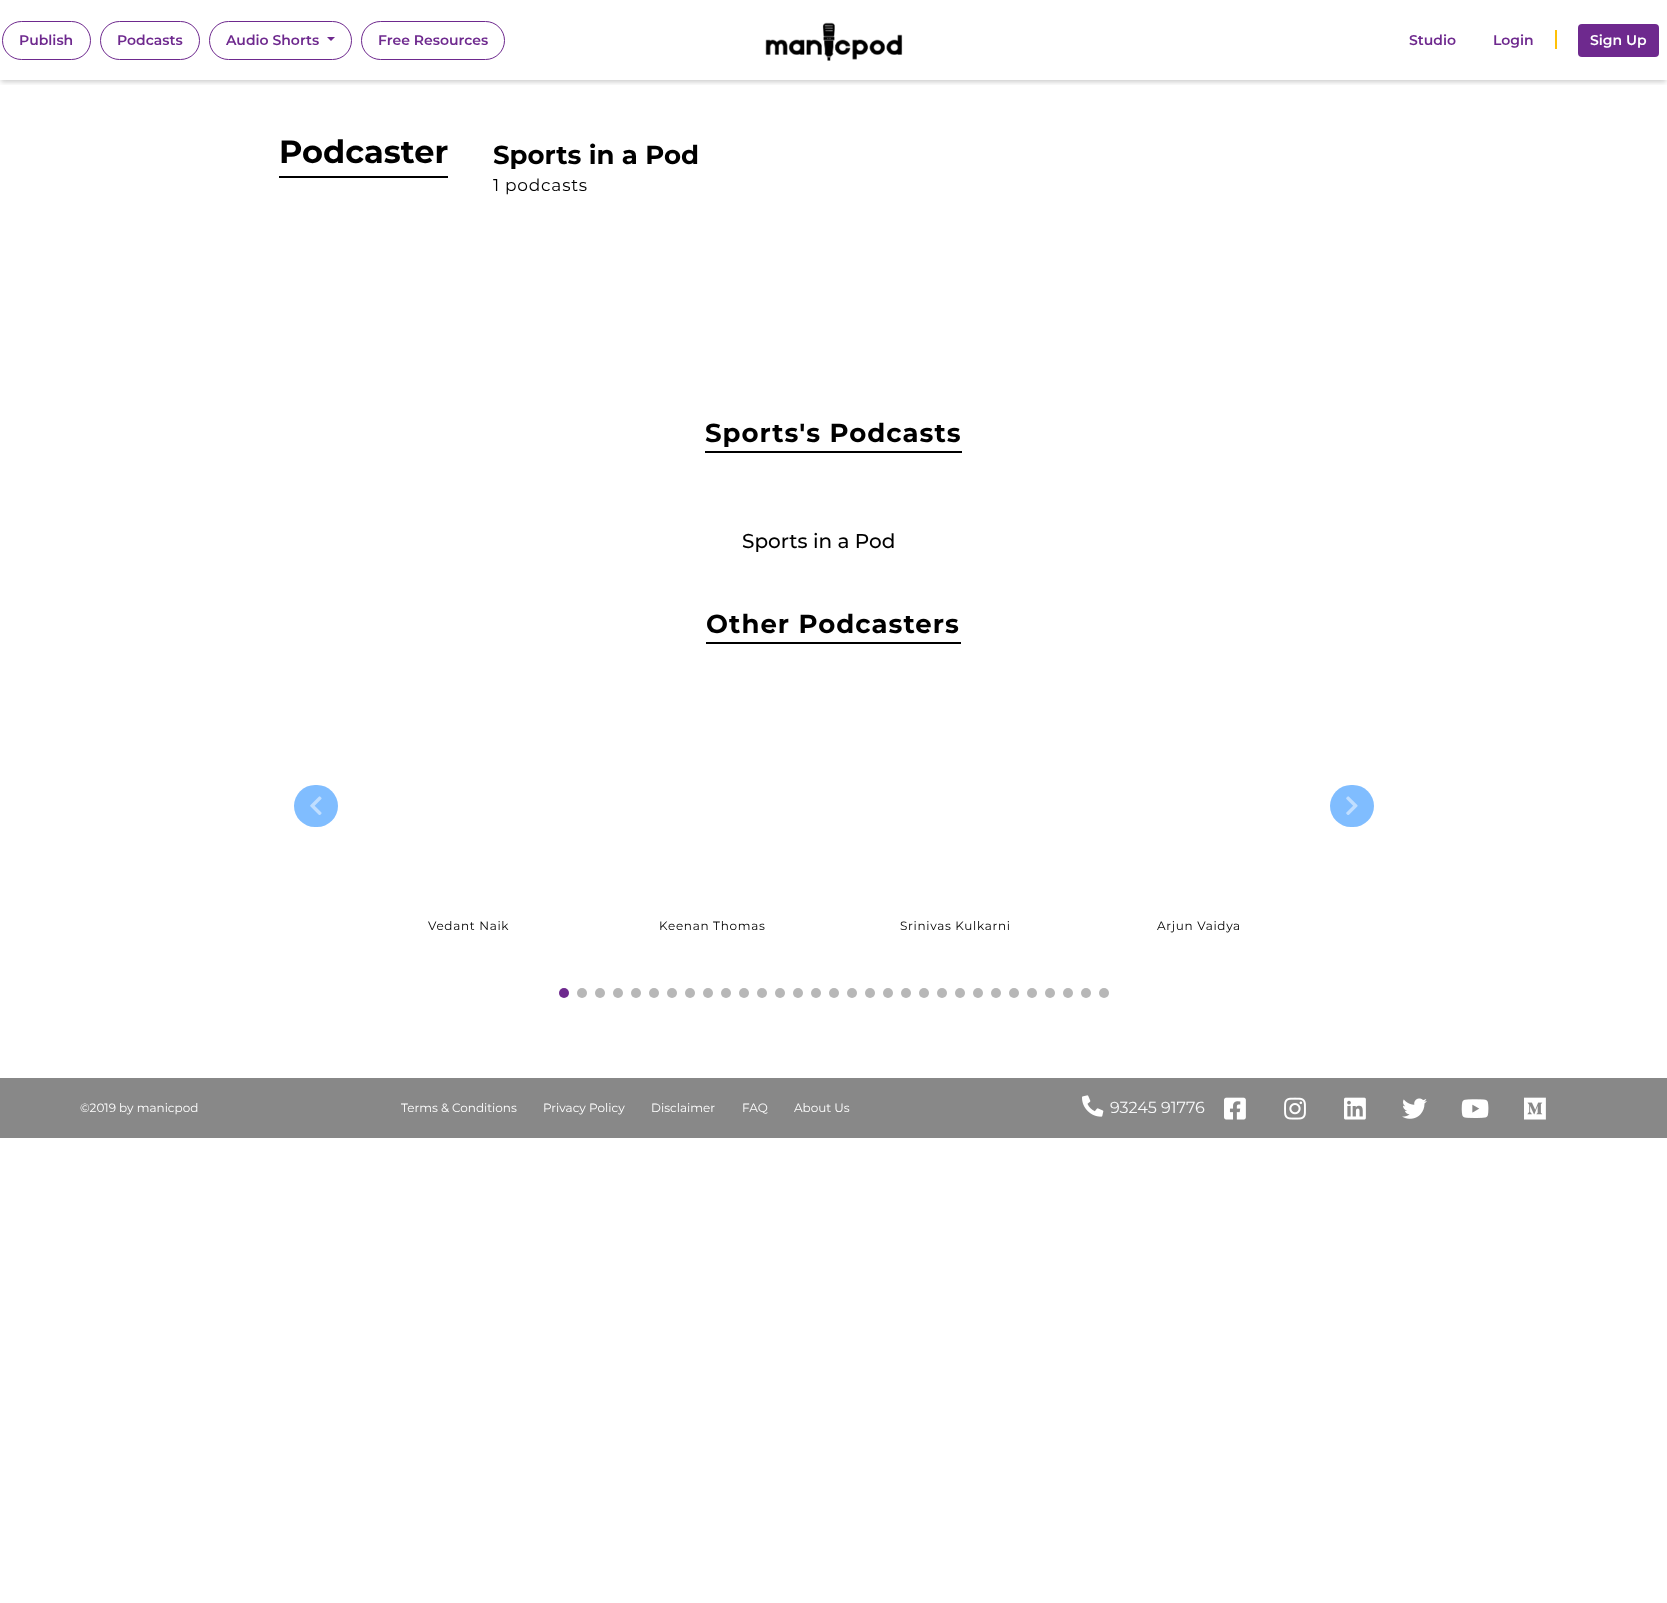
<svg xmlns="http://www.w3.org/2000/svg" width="1667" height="1603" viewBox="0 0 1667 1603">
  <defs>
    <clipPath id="clip1"><rect x="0" y="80" width="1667" height="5"/></clipPath>
  </defs>
  <rect width="100%" height="100%" fill="rgb(255,255,255)"/>
  <g clip-path="url(#clip1)">
    <rect x="1" y="4" width="1665" height="78" fill="rgba(0,0,0,0.2)" filter="blur(2.5px)"/>
  </g>
  <rect x="2.5" y="21.5" width="88" height="38" rx="19" fill="none" stroke="rgb(110,41,142)"/>
  <text x="19" y="45" font-family="Montserrat" font-size="14" font-weight="600" fill="rgb(110,41,142)">Publish</text>
  <rect x="100.5" y="21.5" width="99" height="38" rx="19" fill="none" stroke="rgb(110,41,142)"/>
  <text x="117" y="45" font-family="Montserrat" font-size="14" font-weight="600" fill="rgb(110,41,142)">Podcasts</text>
  <rect x="209.5" y="21.5" width="142" height="38" rx="19" fill="none" stroke="rgb(110,41,142)"/>
  <text x="226" y="45" font-family="Montserrat" font-size="14" font-weight="600" fill="rgb(110,41,142)">Audio Shorts</text>
  <path d="M327 37H335L331 41Z" fill="rgb(110,41,142)"/>
  <rect x="361.5" y="21.5" width="143" height="38" rx="19" fill="none" stroke="rgb(110,41,142)"/>
  <text x="378" y="45" font-family="Montserrat" font-size="14" font-weight="600" fill="rgb(110,41,142)">Free Resources</text>
  <image x="765" y="22" width="138" height="39" href="pic1.png"/>
  <g font-family="Montserrat" font-size="14" font-weight="600" fill="rgb(110,41,142)">
    <text x="1409" y="45">Studio</text>
    <text x="1493" y="45">Login</text>
  </g>
  <rect x="1555" y="30" width="2" height="19" fill="rgb(255,193,7)"/>
  <rect x="1578" y="24" width="81" height="33" rx="4" fill="rgb(110,41,142)"/>
  <text x="1590" y="45" font-family="Montserrat" font-size="14" font-weight="600" fill="rgb(255,255,255)">Sign Up</text>
  <rect x="279" y="176" width="169" height="2" fill="rgb(0,0,0)"/>
  <text x="279" y="163" font-family="Montserrat" font-size="32" font-weight="bold" fill="rgb(0,0,0)">Podcaster</text>
  <text x="493" y="164" font-family="Montserrat" font-size="26" font-weight="bold" fill="rgb(0,0,0)">Sports in a Pod</text>
  <text x="493" y="191" font-family="Montserrat" font-size="17" letter-spacing="0.75" fill="rgb(0,0,0)">1 podcasts</text>
  <rect x="705" y="451" width="257" height="2" fill="rgb(0,0,0)"/>
  <text x="705" y="442" font-family="Montserrat" font-size="26" font-weight="bold" letter-spacing="1" fill="rgb(0,0,0)">Sports's Podcasts</text>
  <text x="742" y="548" font-family="Montserrat" font-size="20" font-weight="500" fill="rgb(0,0,0)">Sports in a Pod</text>
  <rect x="706" y="642" width="255" height="2" fill="rgb(0,0,0)"/>
  <text x="706" y="633" font-family="Montserrat" font-size="26" font-weight="bold" letter-spacing="1" fill="rgb(0,0,0)">Other Podcasters</text>
  <rect x="294" y="785" width="44" height="42" rx="21" fill="rgb(128,189,255)"/>
  <image x="310" y="796" width="12" height="19" href="pic2.png"/>
  <rect x="1330" y="785" width="44" height="42" rx="21" fill="rgb(128,189,255)"/>
  <image x="1346" y="796" width="12" height="19" href="pic3.png"/>
  <g font-family="Montserrat" font-size="12" letter-spacing="0.7" fill="rgb(0,0,0)">
    <text x="428" y="930">Vedant Naik</text>
    <text x="659" y="930">Keenan Thomas</text>
    <text x="900" y="930">Srinivas Kulkarni</text>
    <text x="1157" y="930">Arjun Vaidya</text>
  </g>
  <circle cx="564" cy="993" r="5" fill="rgb(110,41,142)"/>
  <circle cx="582" cy="993" r="5" fill="rgb(183,183,183)"/>
  <circle cx="600" cy="993" r="5" fill="rgb(183,183,183)"/>
  <circle cx="618" cy="993" r="5" fill="rgb(183,183,183)"/>
  <circle cx="636" cy="993" r="5" fill="rgb(183,183,183)"/>
  <circle cx="654" cy="993" r="5" fill="rgb(183,183,183)"/>
  <circle cx="672" cy="993" r="5" fill="rgb(183,183,183)"/>
  <circle cx="690" cy="993" r="5" fill="rgb(183,183,183)"/>
  <circle cx="708" cy="993" r="5" fill="rgb(183,183,183)"/>
  <circle cx="726" cy="993" r="5" fill="rgb(183,183,183)"/>
  <circle cx="744" cy="993" r="5" fill="rgb(183,183,183)"/>
  <circle cx="762" cy="993" r="5" fill="rgb(183,183,183)"/>
  <circle cx="780" cy="993" r="5" fill="rgb(183,183,183)"/>
  <circle cx="798" cy="993" r="5" fill="rgb(183,183,183)"/>
  <circle cx="816" cy="993" r="5" fill="rgb(183,183,183)"/>
  <circle cx="834" cy="993" r="5" fill="rgb(183,183,183)"/>
  <circle cx="852" cy="993" r="5" fill="rgb(183,183,183)"/>
  <circle cx="870" cy="993" r="5" fill="rgb(183,183,183)"/>
  <circle cx="888" cy="993" r="5" fill="rgb(183,183,183)"/>
  <circle cx="906" cy="993" r="5" fill="rgb(183,183,183)"/>
  <circle cx="924" cy="993" r="5" fill="rgb(183,183,183)"/>
  <circle cx="942" cy="993" r="5" fill="rgb(183,183,183)"/>
  <circle cx="960" cy="993" r="5" fill="rgb(183,183,183)"/>
  <circle cx="978" cy="993" r="5" fill="rgb(183,183,183)"/>
  <circle cx="996" cy="993" r="5" fill="rgb(183,183,183)"/>
  <circle cx="1014" cy="993" r="5" fill="rgb(183,183,183)"/>
  <circle cx="1032" cy="993" r="5" fill="rgb(183,183,183)"/>
  <circle cx="1050" cy="993" r="5" fill="rgb(183,183,183)"/>
  <circle cx="1068" cy="993" r="5" fill="rgb(183,183,183)"/>
  <circle cx="1086" cy="993" r="5" fill="rgb(183,183,183)"/>
  <circle cx="1104" cy="993" r="5" fill="rgb(183,183,183)"/>
  <rect x="0" y="1078" width="1667" height="60" fill="rgb(136,136,136)"/>
  <g font-family="Montserrat" font-size="12" fill="rgb(255,255,255)">
    <text x="80" y="1112">©2019 by manicpod</text>
    <text x="401" y="1112">Terms &amp; Conditions</text>
    <text x="543" y="1112">Privacy Policy</text>
    <text x="651" y="1112">Disclaimer</text>
    <text x="742" y="1112">FAQ</text>
    <text x="794" y="1112">About Us</text>
  </g>
  <image x="1082" y="1095" width="22" height="22" href="pic4.png"/>
  <text x="1110" y="1113" font-family="Montserrat" font-size="16" fill="rgb(248,249,250)">93245 91776</text>
  <image x="1224" y="1097" width="22" height="23" href="pic5.png"/>
  <image x="1284" y="1097" width="22" height="23" href="pic6.png"/>
  <image x="1344" y="1097" width="22" height="23" href="pic7.png"/>
  <image x="1402" y="1098" width="25" height="21" href="pic8.png"/>
  <image x="1461" y="1099" width="28" height="19" href="pic9.png"/>
  <image x="1524" y="1097" width="22" height="23" href="pic10.png"/>
</svg>
